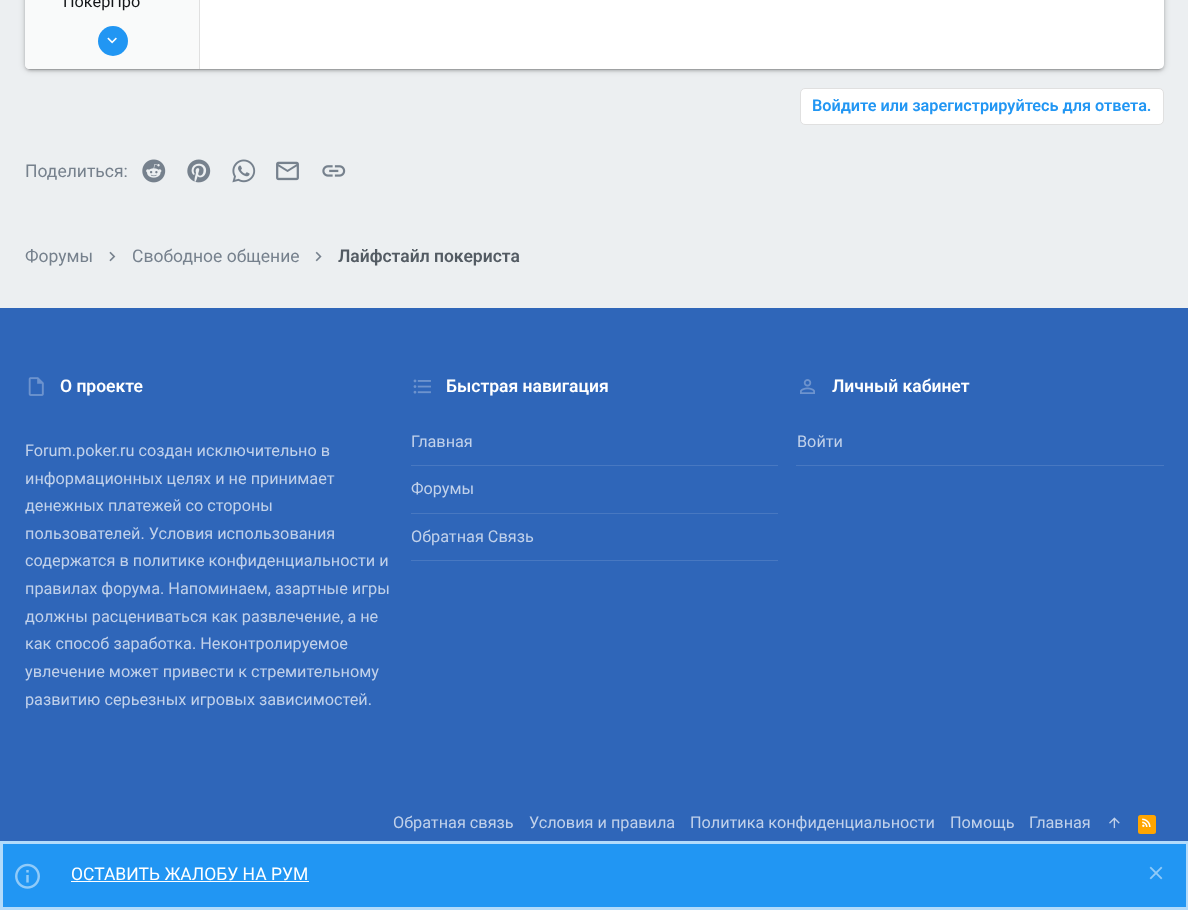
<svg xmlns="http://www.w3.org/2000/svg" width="1188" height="910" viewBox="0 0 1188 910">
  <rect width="100%" height="100%" fill="rgb(236,239,241)"/>
  <rect x="25" y="-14" width="1139" height="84" rx="5" fill="rgba(0,0,0,0.2)" filter="blur(3px)"/>
  <rect x="28" y="-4" width="1133" height="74" rx="2.5" fill="rgba(0,0,0,0.12)" filter="blur(0.5px)"/>
  <rect x="25" y="-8" width="1139" height="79" rx="5" fill="rgba(0,0,0,0.14)" filter="blur(1px)"/>
  <rect x="25" y="-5" width="1139" height="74" rx="5" fill="rgb(255,255,255)"/>
  <path d="M29-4H200V69H29C27 69 25 67 25 65V0C25-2 27-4 29-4Z" fill="rgb(249,250,250)"/>
  <rect x="199" y="0" width="1" height="69" fill="rgb(224,224,224)"/>
  <text x="63" y="7" font-family="Roboto" font-size="16.25" fill="rgb(20,22,24)">ПокерПро</text>
  <circle cx="113" cy="41" r="15" fill="rgb(33,150,243)"/>
  <image x="107" y="37" width="10" height="7" href="pic1.png"/>
  <rect x="800.5" y="88.5" width="363" height="36" rx="4.5" fill="rgb(255,255,255)" stroke="rgb(224,224,224)"/>
  <text x="812" y="111" font-family="Roboto" font-size="16.25" font-weight="600" fill="rgb(33,150,243)">Войдите или зарегистрируйтесь для ответа.</text>
  <text x="25" y="177" font-family="Roboto" font-size="17.5" fill="rgb(118,129,141)">Поделиться:</text>
  <image x="142" y="159" width="24" height="24" href="pic2.png"/>
  <image x="187" y="159" width="24" height="24" href="pic3.png"/>
  <image x="232" y="159" width="24" height="24" href="pic4.png"/>
  <image x="276" y="161" width="23" height="20" href="pic5.png"/>
  <image x="322" y="165" width="24" height="12" href="pic6.png"/>
  <text x="25" y="262" font-family="Roboto" font-size="17.5" fill="rgb(118,129,141)">Форумы</text>
  <image x="109" y="251" width="7" height="11" href="pic7.png"/>
  <text x="132" y="262" font-family="Roboto" font-size="17.5" fill="rgb(118,129,141)">Свободное общение</text>
  <image x="315" y="251" width="7" height="11" href="pic8.png"/>
  <text x="338" y="262" font-family="Roboto" font-size="17.5" font-weight="600" fill="rgb(83,91,99)">Лайфстайл покериста</text>
  <rect x="0" y="308" width="1188" height="533" fill="rgb(47,102,185)"/>
  <image x="28" y="377" width="16" height="19" href="pic9.png"/>
  <text x="60" y="392" font-family="Roboto" font-size="17.5" font-weight="600" fill="rgb(255,255,255)">О проекте</text>
  <g font-family="Roboto" font-size="16.25" fill="rgb(193,209,234)">
    <text>
      <tspan x="25" y="456">Forum.poker.ru создан исключительно в</tspan>
      <tspan x="25" y="484">информационных целях и не принимает</tspan>
      <tspan x="25" y="511">денежных платежей со стороны</tspan>
      <tspan x="25" y="539">пользователей. Условия использования</tspan>
      <tspan x="25" y="566">содержатся в политике конфиденциальности и</tspan>
      <tspan x="25" y="594">правилах форума. Напоминаем, азартные игры</tspan>
      <tspan x="25" y="622">должны расцениваться как развлечение, а не</tspan>
      <tspan x="25" y="649">как способ заработка. Неконтролируемое</tspan>
      <tspan x="25" y="677">увлечение может привести к стремительному</tspan>
      <tspan x="25" y="705">развитию серьезных игровых зависимостей.</tspan>
    </text>
  </g>
  <image x="413" y="379" width="18" height="15" href="pic10.png"/>
  <text x="446" y="392" font-family="Roboto" font-size="17.5" font-weight="600" fill="rgb(255,255,255)">Быстрая навигация</text>
  <rect x="411" y="465" width="367" height="1" fill="rgb(72,120,193)"/>
  <text x="411" y="447" font-family="Roboto" font-size="16.25" fill="rgb(193,209,234)">Главная</text>
  <rect x="411" y="513" width="367" height="1" fill="rgb(72,120,193)"/>
  <text x="411" y="494" font-family="Roboto" font-size="16.25" fill="rgb(193,209,234)">Форумы</text>
  <rect x="411" y="560" width="367" height="1" fill="rgb(72,120,193)"/>
  <text x="411" y="542" font-family="Roboto" font-size="16.25" fill="rgb(193,209,234)">Обратная Связь</text>
  <image x="800" y="379" width="15" height="15" href="pic11.png"/>
  <text x="832" y="392" font-family="Roboto" font-size="17.5" font-weight="600" fill="rgb(255,255,255)">Личный кабинет</text>
  <rect x="796" y="465" width="368" height="1" fill="rgb(72,120,193)"/>
  <g font-family="Roboto" font-size="16.25" fill="rgb(193,209,234)">
    <text x="797" y="447">Войти</text>
    <text x="393" y="828">Обратная связь</text>
    <text x="529" y="828">Условия и правила</text>
    <text x="690" y="828">Политика конфиденциальности</text>
    <text x="950" y="828">Помощь</text>
    <text x="1029" y="828">Главная</text>
  </g>
  <image x="1109" y="817" width="11" height="12" href="pic12.png"/>
  <rect x="1138" y="815" width="18" height="19" rx="2.5" fill="rgb(255,165,0)"/>
  <image x="1142" y="818" width="9" height="9" href="pic13.png"/>
  <rect x="1.5" y="842.5" width="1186" height="66" fill="rgb(33,150,243)" stroke="rgb(178,219,251)" stroke-width="3"/>
  <image x="15" y="863" width="25" height="26" href="pic14.png"/>
  <text x="71" y="880" font-family="Roboto" font-size="17.5" fill="rgb(255,255,255)">ОСТАВИТЬ ЖАЛОБУ НА РУМ</text>
  <rect x="71" y="881" width="238" height="1" fill="rgb(255,255,255)"/>
  <image x="1149" y="866" width="14" height="14" href="pic15.png"/>
</svg>
